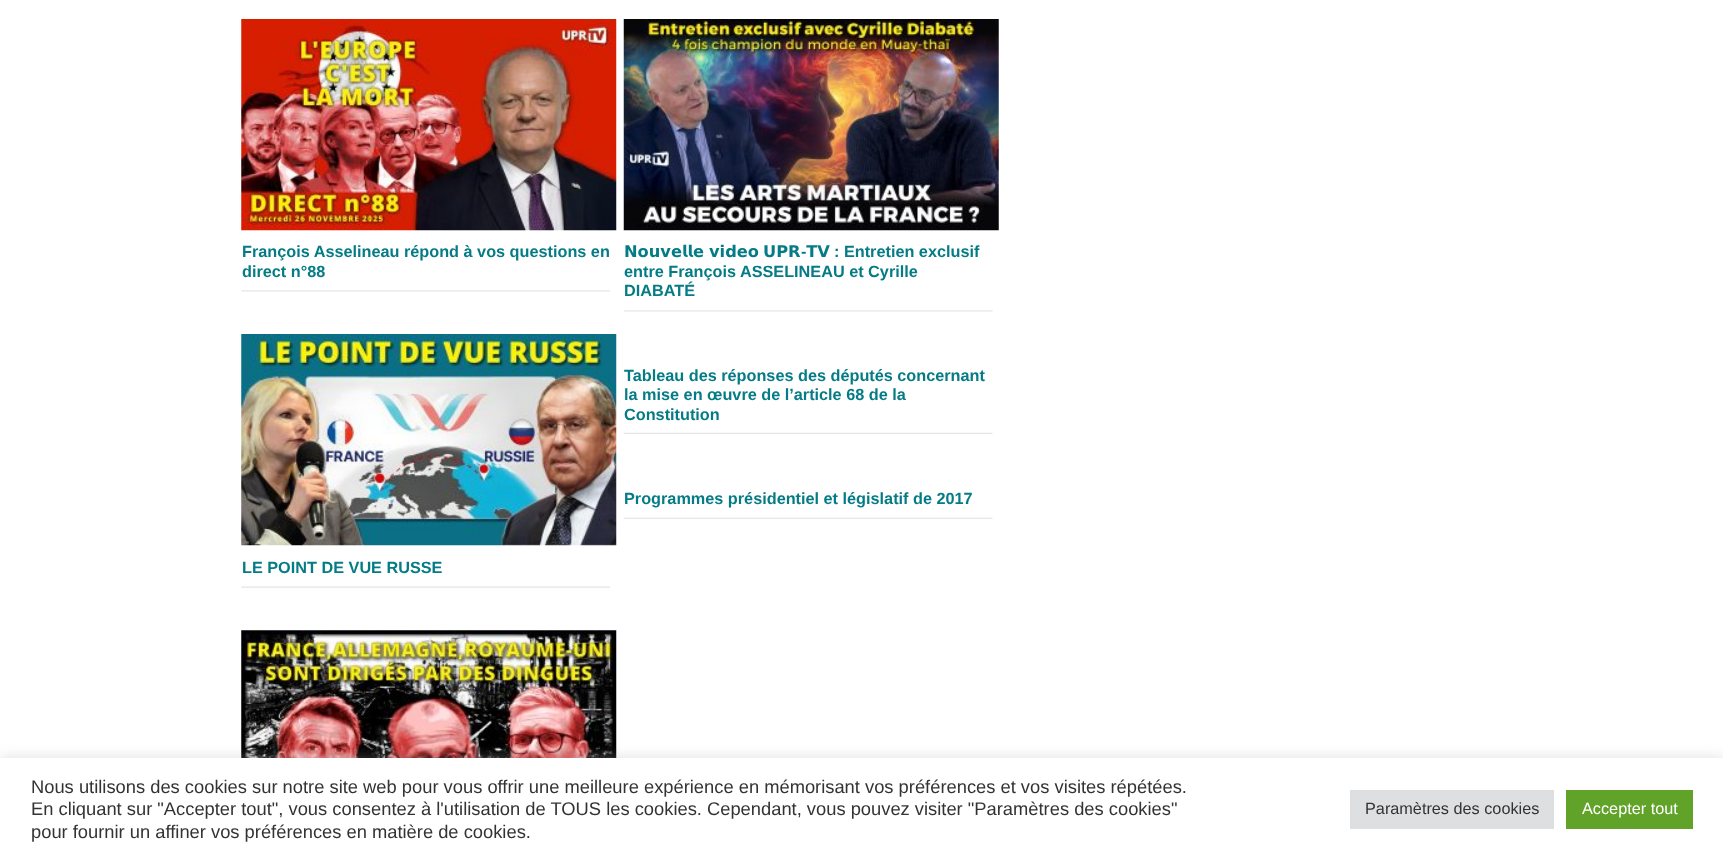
<svg xmlns="http://www.w3.org/2000/svg" width="1723" height="859" viewBox="0 0 1723 859">
  <rect width="100%" height="100%" fill="rgb(255,255,255)"/>
  <image x="241" y="19" width="376" height="212" href="pic1.png"/>
  <image x="241" y="290" width="369" height="2" href="pic2.png"/>
  <g font-family="Liberation Sans" font-size="16.25" font-weight="bold" fill="rgb(5,124,133)">
    <text>
      <tspan x="242" y="257">François Asselineau répond à vos questions en</tspan>
      <tspan x="242" y="277">direct n°88</tspan>
    </text>
  </g>
  <image x="241" y="334" width="376" height="212" href="pic3.png"/>
  <image x="241" y="586" width="369" height="2" href="pic4.png"/>
  <text x="242" y="573" font-family="Liberation Sans" font-size="16.25" font-weight="bold" fill="rgb(5,124,133)">LE POINT DE VUE RUSSE</text>
  <image x="241" y="630" width="376" height="128" href="pic5.png"/>
  <image x="623" y="19" width="376" height="212" href="pic6.png"/>
  <image x="623" y="310" width="370" height="2" href="pic7.png"/>
  <g font-family="DejaVu Sans" font-size="16.25" font-weight="bold" fill="rgb(5,124,133)">
    <text x="624" y="257">𝗡𝗼𝘂𝘃𝗲𝗹𝗹𝗲</text>
    <text x="709" y="257">𝘃𝗶𝗱𝗲𝗼</text>
    <text x="763" y="257">𝗨𝗣𝗥 𝗧𝗩</text>
  </g>
  <g font-family="Liberation Sans" font-size="16.25" font-weight="bold" fill="rgb(5,124,133)">
    <text x="834" y="257">: Entretien exclusif</text>
    <text x="801" y="257">-</text>
    <text>
      <tspan x="624" y="277">entre François ASSELINEAU et Cyrille</tspan>
      <tspan x="624" y="296">DIABATÉ</tspan>
    </text>
  </g>
  <image x="623" y="432" width="370" height="2" href="pic8.png"/>
  <g font-family="Liberation Sans" font-size="16.25" font-weight="bold" fill="rgb(5,124,133)">
    <text>
      <tspan x="624" y="381">Tableau des réponses des députés concernant</tspan>
      <tspan x="624" y="400">la mise en œuvre de l’article 68 de la</tspan>
      <tspan x="624" y="420">Constitution</tspan>
    </text>
  </g>
  <image x="623" y="517" width="370" height="2" href="pic8.png"/>
  <text x="624" y="504" font-family="Liberation Sans" font-size="16.25" font-weight="bold" fill="rgb(5,124,133)">Programmes présidentiel et législatif de 2017</text>
  <rect x="0" y="756" width="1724" height="103" fill="rgba(172,171,171,0.3)" filter="blur(6px)"/>
  <rect x="0" y="758" width="1723" height="101" fill="rgb(255,255,255)"/>
  <g font-family="Liberation Sans" font-size="18.33" fill="rgb(51,51,51)">
    <text>
      <tspan x="31" y="793">Nous utilisons des cookies sur notre site web pour vous offrir une meilleure expérience en mémorisant vos préférences et vos visites répétées.</tspan>
      <tspan x="31" y="815">En cliquant sur "Accepter tout", vous consentez à l'utilisation de TOUS les cookies. Cependant, vous pouvez visiter "Paramètres des cookies"</tspan>
      <tspan x="31" y="838">pour fournir un affiner vos préférences en matière de cookies.</tspan>
    </text>
  </g>
  <rect x="1350" y="790" width="204" height="39" fill="rgb(222,223,224)"/>
  <text x="1365" y="814" font-family="Liberation Sans" font-size="16.25" fill="rgb(51,51,51)">Paramètres des cookies</text>
  <rect x="1566" y="790" width="127" height="39" fill="rgb(97,162,41)"/>
  <text x="1582" y="814" font-family="Liberation Sans" font-size="16.25" fill="rgb(255,255,255)">Accepter tout</text>
</svg>
